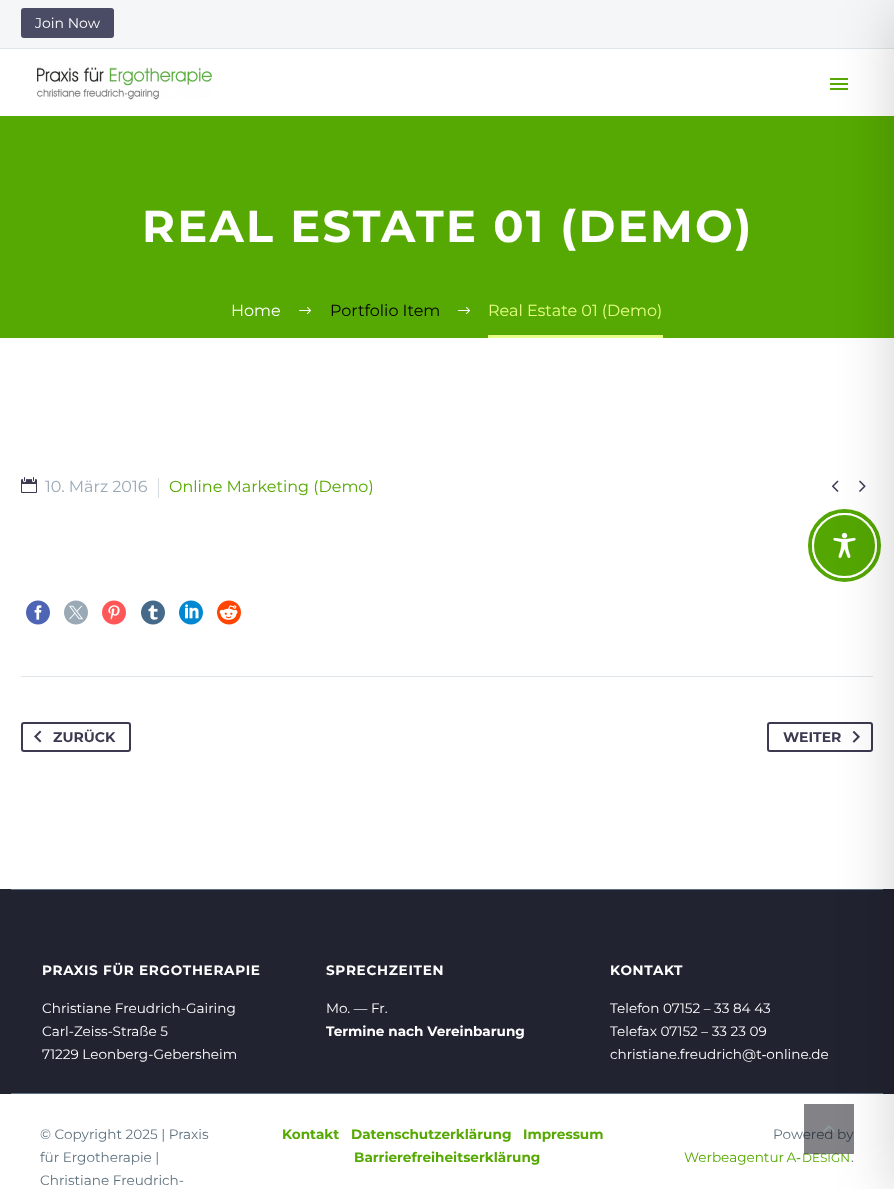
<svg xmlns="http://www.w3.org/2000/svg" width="894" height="1189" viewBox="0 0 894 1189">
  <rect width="100%" height="100%" fill="rgb(255,255,255)"/>
  <rect x="0" y="0" width="894" height="48" fill="rgb(244,246,247)"/>
  <rect x="0" y="48" width="894" height="1" fill="rgb(223,229,232)"/>
  <rect x="830" y="78" width="18" height="2" fill="rgb(86,169,2)"/>
  <rect x="830" y="83" width="18" height="2" fill="rgb(86,169,2)"/>
  <rect x="830" y="88" width="18" height="2" fill="rgb(86,169,2)"/>
  <rect x="0" y="116" width="894" height="222" fill="rgb(86,169,2)"/>
  <image x="832" y="480" width="7" height="12" href="pic4.png"/>
  <image x="859" y="480" width="7" height="12" href="pic5.png"/>
  <rect x="21" y="676" width="852" height="1" fill="rgb(223,229,232)"/>
  <rect x="768" y="723" width="104" height="28" rx="2" fill="none" stroke="rgb(60,57,80)" stroke-width="2"/>
  <image x="852" y="730" width="8" height="13" href="pic13.png"/>
  <rect x="0" y="889" width="894" height="205" fill="rgb(33,35,49)"/>
  <rect x="11" y="889" width="872" height="1" fill="rgb(95,114,127)"/>
  <rect x="11" y="1093" width="872" height="1" fill="rgb(95,114,127)"/>
  <text x="773" y="1139" font-family="Montserrat" font-size="13.6" fill="rgb(95,114,127)">Powered by</text>
  <text x="684" y="1162" word-spacing="-1" font-family="Montserrat" font-size="13.6" fill="rgb(86,169,2)">Werbeagentur A‑</text>
  <text x="802" y="1162" font-family="Montserrat" font-size="12" fill="rgb(86,169,2)">DESIGN</text>
  <rect x="804" y="1104" width="50" height="50" fill="rgba(6,6,15,0.5)"/>
  <image x="823" y="1125" width="12" height="7" href="pic14.png"/>
  <circle cx="844.5" cy="545.5" r="34.5" fill="none" stroke="rgb(84,167,3)" stroke-width="4"/>
  <circle cx="844.5" cy="545.5" r="31.5" fill="rgb(84,167,3)" stroke="rgb(255,255,255)" stroke-width="2"/>
  <image x="833" y="532" width="23" height="26" href="pic15.png"/>
  <rect x="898" y="10" width="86" height="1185" fill="rgba(0,0,0,0.2)" filter="blur(30px)"/>
  <rect x="21" y="8" width="93" height="30" rx="3" fill="rgb(73,76,100)"/>
  <text x="35" y="28" font-family="Montserrat" font-size="14" fill="rgb(255,255,255)">Join Now</text>
  <image x="37" y="67" width="175" height="33" href="pic1.png"/>
  <text x="142" y="242" font-family="Montserrat" font-size="44.75" font-weight="bold" letter-spacing="2.25" fill="rgb(255,255,255)">REAL ESTATE 01 (DEMO)</text>
  <text x="231" y="316" font-family="Montserrat" font-size="16" fill="rgb(255,255,255)">Home</text>
  <image x="299" y="307" width="12" height="7" href="pic2.png"/>
  <text x="330" y="316" font-family="Montserrat" font-size="16" fill="rgb(0,0,0)">Portfolio Item</text>
  <image x="458" y="307" width="12" height="7" href="pic2.png"/>
  <rect x="488" y="335" width="175" height="3" fill="rgb(231,255,137)"/>
  <text x="488" y="316" font-family="Montserrat" font-size="16" fill="rgb(231,255,137)">Real Estate 01 (Demo)</text>
  <image x="21" y="477" width="16" height="16" href="pic3.png"/>
  <text x="45" y="492" font-family="Montserrat" font-size="16" fill="rgb(153,169,181)">10. März 2016</text>
  <rect x="158" y="478" width="1" height="20" fill="rgb(212,222,225)"/>
  <text x="169" y="492" font-family="Montserrat" font-size="16" fill="rgb(86,169,2)">Online Marketing (Demo)</text>
  <image x="26" y="600" width="24" height="25" href="pic6.png"/>
  <image x="64" y="600" width="24" height="25" href="pic7.png"/>
  <image x="102" y="600" width="24" height="25" href="pic8.png"/>
  <image x="141" y="600" width="24" height="25" href="pic9.png"/>
  <image x="179" y="600" width="24" height="25" href="pic10.png"/>
  <image x="217" y="600" width="24" height="25" href="pic11.png"/>
  <rect x="22" y="723" width="108" height="28" rx="2" fill="none" stroke="rgb(60,57,80)" stroke-width="2"/>
  <image x="34" y="730" width="8" height="13" href="pic12.png"/>
  <g font-family="Montserrat" font-size="14" font-weight="bold" fill="rgb(60,57,80)">
    <text x="53" y="742">ZURÜCK</text>
    <text x="783" y="742">WEITER</text>
  </g>
  <text x="42" y="975" font-family="Montserrat" font-size="13.6" font-weight="bold" letter-spacing="0.7" fill="rgb(255,255,255)">PRAXIS FÜR ERGOTHERAPIE</text>
  <g font-family="Montserrat" font-size="13.6" fill="rgb(255,255,255)">
    <text>
      <tspan x="42" y="1013">Christiane Freudrich-Gairing</tspan>
      <tspan x="42" y="1036">Carl-Zeiss-Straße 5</tspan>
      <tspan x="42" y="1059">71229 Leonberg-Gebersheim</tspan>
    </text>
  </g>
  <text x="326" y="975" font-family="Montserrat" font-size="13.6" font-weight="bold" letter-spacing="0.7" fill="rgb(255,255,255)">SPRECHZEITEN</text>
  <text x="326" y="1013" font-family="Montserrat" font-size="13.6" fill="rgb(255,255,255)">Mo. — Fr.</text>
  <text x="326" y="1036" font-family="Montserrat" font-size="13.6" font-weight="bold" fill="rgb(255,255,255)">Termine nach Vereinbarung</text>
  <text x="610" y="975" font-family="Montserrat" font-size="13.6" font-weight="bold" letter-spacing="0.7" fill="rgb(255,255,255)">KONTAKT</text>
  <g font-family="Montserrat" font-size="13.6" fill="rgb(255,255,255)">
    <text>
      <tspan x="610" y="1013">Telefon 07152 – 33 84 43</tspan>
      <tspan x="610" y="1036">Telefax 07152 – 33 23 09</tspan>
      <tspan x="610" y="1059">christiane.freudrich@t‑online.de</tspan>
    </text>
  </g>
  <g font-family="Montserrat" font-size="13.6" fill="rgb(95,114,127)">
    <text>
      <tspan x="40" y="1139">© Copyright 2025 | Praxis</tspan>
      <tspan x="40" y="1162">für Ergotherapie |</tspan>
      <tspan x="40" y="1185">Christiane Freudrich-</tspan>
    </text>
  </g>
  <g font-family="Montserrat" font-size="13.6" font-weight="bold" fill="rgb(86,169,2)">
    <text x="282" y="1139">Kontakt</text>
    <text x="351" y="1139">Datenschutzerklärung</text>
    <text x="523" y="1139">Impressum</text>
    <text x="354" y="1162">Barrierefreiheitserklärung</text>
  </g>
  <text x="851" y="1162" font-family="Montserrat" font-size="13.6" fill="rgb(95,114,127)">.</text>
</svg>
